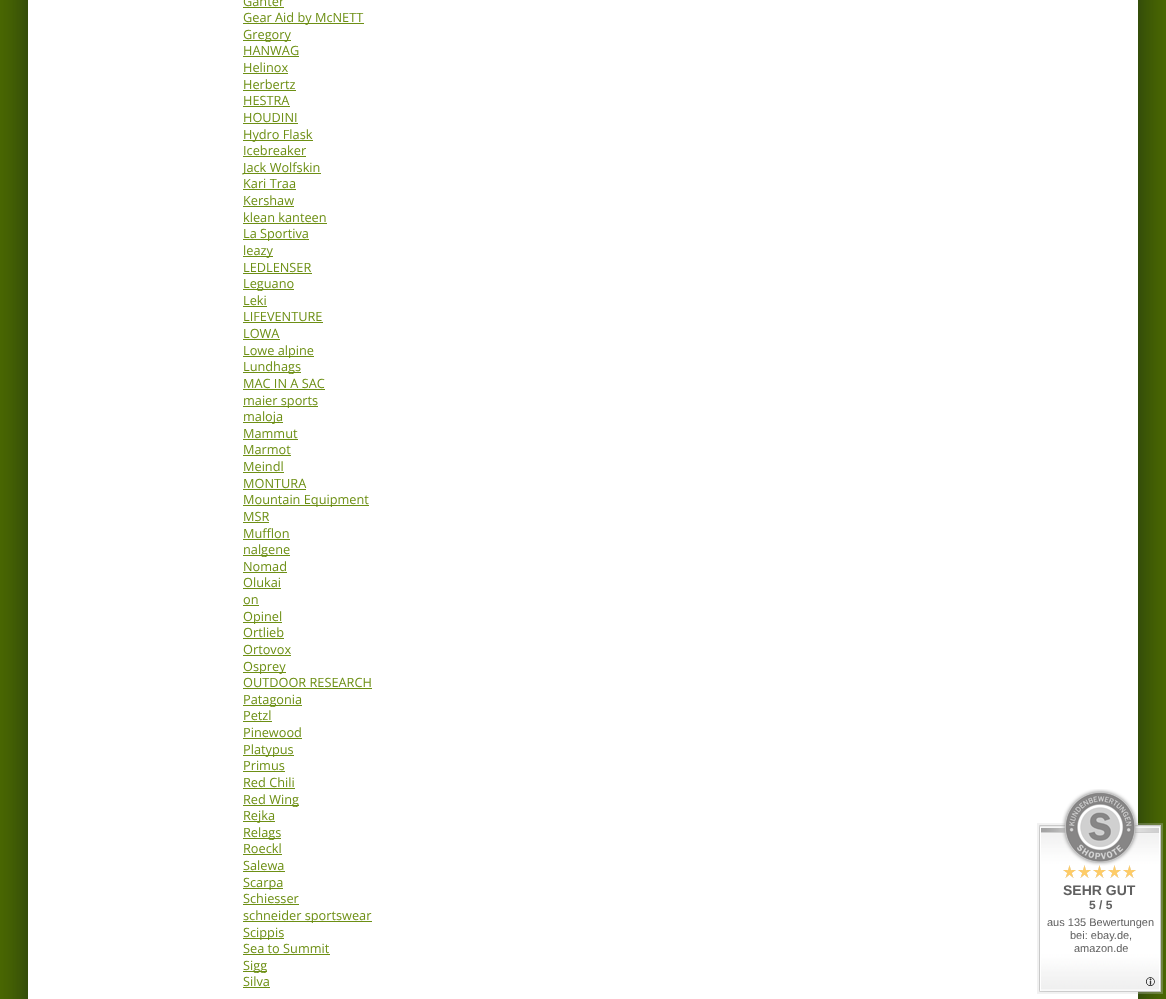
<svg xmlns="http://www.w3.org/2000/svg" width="1166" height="999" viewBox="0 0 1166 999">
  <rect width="100%" height="100%" fill="rgb(77,107,0)"/>
  <rect x="28" y="-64" width="1110" height="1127" rx="4" fill="rgb(27,47,19)" filter="blur(20px)"/>
  <rect x="28" y="0" width="1110" height="999" fill="rgb(255,255,255)"/>
  <text x="243" y="6" font-family="Open Sans" font-size="12.75" fill="rgb(109,143,20)">Ganter</text>
  <rect x="243" y="7" width="41" height="1" fill="rgb(109,143,20)"/>
  <rect x="243" y="23" width="121" height="1" fill="rgb(109,143,20)"/>
  <text x="243" y="22" font-family="Open Sans" font-size="12.75" fill="rgb(109,143,20)">Gear Aid by McNETT</text>
  <rect x="243" y="40" width="48" height="1" fill="rgb(109,143,20)"/>
  <g font-family="Open Sans" font-size="12.75" fill="rgb(109,143,20)">
    <text>
      <tspan x="243" y="39">Gregory</tspan>
      <tspan x="243" y="55">HANWAG</tspan>
    </text>
  </g>
  <rect x="243" y="56" width="56" height="1" fill="rgb(109,143,20)"/>
  <text x="243" y="72" font-family="Open Sans" font-size="12.75" fill="rgb(109,143,20)">Helinox</text>
  <rect x="243" y="73" width="45" height="1" fill="rgb(109,143,20)"/>
  <text x="243" y="89" font-family="Open Sans" font-size="12.75" fill="rgb(109,143,20)">Herbertz</text>
  <rect x="243" y="90" width="53" height="1" fill="rgb(109,143,20)"/>
  <text x="243" y="105" font-family="Open Sans" font-size="12.75" fill="rgb(109,143,20)">HESTRA</text>
  <rect x="243" y="106" width="47" height="1" fill="rgb(109,143,20)"/>
  <text x="243" y="122" font-family="Open Sans" font-size="12.75" fill="rgb(109,143,20)">HOUDINI</text>
  <rect x="243" y="123" width="55" height="1" fill="rgb(109,143,20)"/>
  <rect x="243" y="140" width="70" height="1" fill="rgb(109,143,20)"/>
  <g font-family="Open Sans" font-size="12.75" fill="rgb(109,143,20)">
    <text>
      <tspan x="243" y="139">Hydro Flask</tspan>
      <tspan x="243" y="155">Icebreaker</tspan>
    </text>
  </g>
  <rect x="243" y="156" width="63" height="1" fill="rgb(109,143,20)"/>
  <rect x="243" y="173" width="78" height="1" fill="rgb(109,143,20)"/>
  <g font-family="Open Sans" font-size="12.75" fill="rgb(109,143,20)">
    <text>
      <tspan x="243" y="172">Jack Wolfskin</tspan>
      <tspan x="243" y="188">Kari Traa</tspan>
    </text>
  </g>
  <rect x="243" y="189" width="53" height="1" fill="rgb(109,143,20)"/>
  <text x="243" y="205" font-family="Open Sans" font-size="12.75" fill="rgb(109,143,20)">Kershaw</text>
  <rect x="243" y="206" width="51" height="1" fill="rgb(109,143,20)"/>
  <text x="243" y="222" font-family="Open Sans" font-size="12.75" fill="rgb(109,143,20)">klean kanteen</text>
  <rect x="243" y="223" width="84" height="1" fill="rgb(109,143,20)"/>
  <rect x="243" y="239" width="66" height="1" fill="rgb(109,143,20)"/>
  <text x="243" y="238" font-family="Open Sans" font-size="12.75" fill="rgb(109,143,20)">La Sportiva</text>
  <rect x="243" y="256" width="30" height="1" fill="rgb(109,143,20)"/>
  <g font-family="Open Sans" font-size="12.75" fill="rgb(109,143,20)">
    <text>
      <tspan x="243" y="255">leazy</tspan>
      <tspan x="243" y="272">LEDLENSER</tspan>
    </text>
  </g>
  <rect x="243" y="273" width="69" height="1" fill="rgb(109,143,20)"/>
  <rect x="243" y="289" width="51" height="1" fill="rgb(109,143,20)"/>
  <g font-family="Open Sans" font-size="12.75" fill="rgb(109,143,20)">
    <text>
      <tspan x="243" y="288">Leguano</tspan>
      <tspan x="243" y="305">Leki</tspan>
    </text>
  </g>
  <rect x="243" y="306" width="24" height="1" fill="rgb(109,143,20)"/>
  <text x="243" y="321" font-family="Open Sans" font-size="12.75" fill="rgb(109,143,20)">LIFEVENTURE</text>
  <rect x="243" y="322" width="80" height="1" fill="rgb(109,143,20)"/>
  <text x="243" y="338" font-family="Open Sans" font-size="12.75" fill="rgb(109,143,20)">LOWA</text>
  <rect x="243" y="339" width="37" height="1" fill="rgb(109,143,20)"/>
  <rect x="243" y="356" width="71" height="1" fill="rgb(109,143,20)"/>
  <text x="243" y="355" font-family="Open Sans" font-size="12.75" fill="rgb(109,143,20)">Lowe alpine</text>
  <rect x="243" y="372" width="58" height="1" fill="rgb(109,143,20)"/>
  <g font-family="Open Sans" font-size="12.75" fill="rgb(109,143,20)">
    <text>
      <tspan x="243" y="371">Lundhags</tspan>
      <tspan x="243" y="388">MAC IN A SAC</tspan>
    </text>
  </g>
  <rect x="243" y="389" width="82" height="1" fill="rgb(109,143,20)"/>
  <rect x="243" y="406" width="75" height="1" fill="rgb(109,143,20)"/>
  <text x="243" y="405" font-family="Open Sans" font-size="12.75" fill="rgb(109,143,20)">maier sports</text>
  <rect x="243" y="422" width="40" height="1" fill="rgb(109,143,20)"/>
  <g font-family="Open Sans" font-size="12.75" fill="rgb(109,143,20)">
    <text>
      <tspan x="243" y="421">maloja</tspan>
      <tspan x="243" y="438">Mammut</tspan>
    </text>
  </g>
  <rect x="243" y="439" width="55" height="1" fill="rgb(109,143,20)"/>
  <text x="243" y="454" font-family="Open Sans" font-size="12.75" fill="rgb(109,143,20)">Marmot</text>
  <rect x="243" y="455" width="48" height="1" fill="rgb(109,143,20)"/>
  <text x="243" y="471" font-family="Open Sans" font-size="12.75" fill="rgb(109,143,20)">Meindl</text>
  <rect x="243" y="472" width="41" height="1" fill="rgb(109,143,20)"/>
  <text x="243" y="488" font-family="Open Sans" font-size="12.75" fill="rgb(109,143,20)">MONTURA</text>
  <rect x="243" y="489" width="63" height="1" fill="rgb(109,143,20)"/>
  <rect x="243" y="505" width="126" height="1" fill="rgb(109,143,20)"/>
  <g font-family="Open Sans" font-size="12.75" fill="rgb(109,143,20)">
    <text>
      <tspan x="243" y="504">Mountain Equipment</tspan>
      <tspan x="243" y="521">MSR</tspan>
    </text>
  </g>
  <rect x="243" y="522" width="26" height="1" fill="rgb(109,143,20)"/>
  <text x="243" y="538" font-family="Open Sans" font-size="12.75" fill="rgb(109,143,20)">Mufflon</text>
  <rect x="243" y="539" width="47" height="1" fill="rgb(109,143,20)"/>
  <rect x="243" y="555" width="47" height="1" fill="rgb(109,143,20)"/>
  <g font-family="Open Sans" font-size="12.75" fill="rgb(109,143,20)">
    <text>
      <tspan x="243" y="554">nalgene</tspan>
      <tspan x="243" y="571">Nomad</tspan>
    </text>
  </g>
  <rect x="243" y="572" width="44" height="1" fill="rgb(109,143,20)"/>
  <text x="243" y="587" font-family="Open Sans" font-size="12.75" fill="rgb(109,143,20)">Olukai</text>
  <rect x="243" y="588" width="38" height="1" fill="rgb(109,143,20)"/>
  <text x="243" y="604" font-family="Open Sans" font-size="12.75" fill="rgb(109,143,20)">on</text>
  <rect x="243" y="605" width="16" height="1" fill="rgb(109,143,20)"/>
  <rect x="243" y="622" width="39" height="1" fill="rgb(109,143,20)"/>
  <g font-family="Open Sans" font-size="12.75" fill="rgb(109,143,20)">
    <text>
      <tspan x="243" y="621">Opinel</tspan>
      <tspan x="243" y="637">Ortlieb</tspan>
    </text>
  </g>
  <rect x="243" y="638" width="41" height="1" fill="rgb(109,143,20)"/>
  <text x="243" y="654" font-family="Open Sans" font-size="12.75" fill="rgb(109,143,20)">Ortovox</text>
  <rect x="243" y="655" width="48" height="1" fill="rgb(109,143,20)"/>
  <rect x="243" y="672" width="43" height="1" fill="rgb(109,143,20)"/>
  <g font-family="Open Sans" font-size="12.75" fill="rgb(109,143,20)">
    <text>
      <tspan x="243" y="671">Osprey</tspan>
      <tspan x="243" y="687">OUTDOOR RESEARCH</tspan>
    </text>
  </g>
  <rect x="243" y="688" width="129" height="1" fill="rgb(109,143,20)"/>
  <rect x="243" y="705" width="59" height="1" fill="rgb(109,143,20)"/>
  <g font-family="Open Sans" font-size="12.75" fill="rgb(109,143,20)">
    <text>
      <tspan x="243" y="704">Patagonia</tspan>
      <tspan x="243" y="720">Petzl</tspan>
    </text>
  </g>
  <rect x="243" y="721" width="29" height="1" fill="rgb(109,143,20)"/>
  <text x="243" y="737" font-family="Open Sans" font-size="12.75" fill="rgb(109,143,20)">Pinewood</text>
  <rect x="243" y="738" width="59" height="1" fill="rgb(109,143,20)"/>
  <rect x="243" y="755" width="51" height="1" fill="rgb(109,143,20)"/>
  <g font-family="Open Sans" font-size="12.75" fill="rgb(109,143,20)">
    <text>
      <tspan x="243" y="754">Platypus</tspan>
      <tspan x="243" y="770">Primus</tspan>
    </text>
  </g>
  <rect x="243" y="771" width="42" height="1" fill="rgb(109,143,20)"/>
  <text x="243" y="787" font-family="Open Sans" font-size="12.75" fill="rgb(109,143,20)">Red Chili</text>
  <rect x="243" y="788" width="52" height="1" fill="rgb(109,143,20)"/>
  <rect x="243" y="805" width="56" height="1" fill="rgb(109,143,20)"/>
  <text x="243" y="804" font-family="Open Sans" font-size="12.75" fill="rgb(109,143,20)">Red Wing</text>
  <rect x="243" y="821" width="32" height="1" fill="rgb(109,143,20)"/>
  <text x="243" y="820" font-family="Open Sans" font-size="12.75" fill="rgb(109,143,20)">Rejka</text>
  <rect x="243" y="838" width="38" height="1" fill="rgb(109,143,20)"/>
  <g font-family="Open Sans" font-size="12.75" fill="rgb(109,143,20)">
    <text>
      <tspan x="243" y="837">Relags</tspan>
      <tspan x="243" y="853">Roeckl</tspan>
    </text>
  </g>
  <rect x="243" y="854" width="39" height="1" fill="rgb(109,143,20)"/>
  <text x="243" y="870" font-family="Open Sans" font-size="12.75" fill="rgb(109,143,20)">Salewa</text>
  <rect x="243" y="871" width="42" height="1" fill="rgb(109,143,20)"/>
  <rect x="243" y="888" width="40" height="1" fill="rgb(109,143,20)"/>
  <g font-family="Open Sans" font-size="12.75" fill="rgb(109,143,20)">
    <text>
      <tspan x="243" y="887">Scarpa</tspan>
      <tspan x="243" y="903">Schiesser</tspan>
    </text>
  </g>
  <rect x="243" y="904" width="56" height="1" fill="rgb(109,143,20)"/>
  <rect x="243" y="921" width="129" height="1" fill="rgb(109,143,20)"/>
  <text x="243" y="920" font-family="Open Sans" font-size="12.75" fill="rgb(109,143,20)">schneider sportswear</text>
  <rect x="243" y="938" width="41" height="1" fill="rgb(109,143,20)"/>
  <g font-family="Open Sans" font-size="12.75" fill="rgb(109,143,20)">
    <text>
      <tspan x="243" y="937">Scippis</tspan>
      <tspan x="243" y="953">Sea to Summit</tspan>
    </text>
  </g>
  <rect x="243" y="954" width="87" height="1" fill="rgb(109,143,20)"/>
  <rect x="243" y="971" width="24" height="1" fill="rgb(109,143,20)"/>
  <g font-family="Open Sans" font-size="12.75" fill="rgb(109,143,20)">
    <text>
      <tspan x="243" y="970">Sigg</tspan>
      <tspan x="243" y="986">Silva</tspan>
    </text>
  </g>
  <rect x="243" y="987" width="27" height="1" fill="rgb(109,143,20)"/>
  <image x="1037" y="789" width="126" height="205" href="pic1.png"/>
  <image x="1063" y="865" width="73" height="13" href="pic2.png"/>
  <text x="1063" y="895" font-family="Liberation Sans" font-size="14" font-weight="bold" fill="rgb(96,96,96)">SEHR GUT</text>
  <text x="1089" y="909" font-family="Liberation Sans" font-size="12" font-weight="bold" fill="rgb(96,96,96)">5 / 5</text>
  <g font-family="Liberation Sans" font-size="11" fill="rgb(96,96,96)">
    <text x="1047" y="926">aus 135 Bewertungen</text>
    <text x="1070" y="939">bei: ebay.de,</text>
    <text x="1074" y="952">amazon.de</text>
  </g>
</svg>
